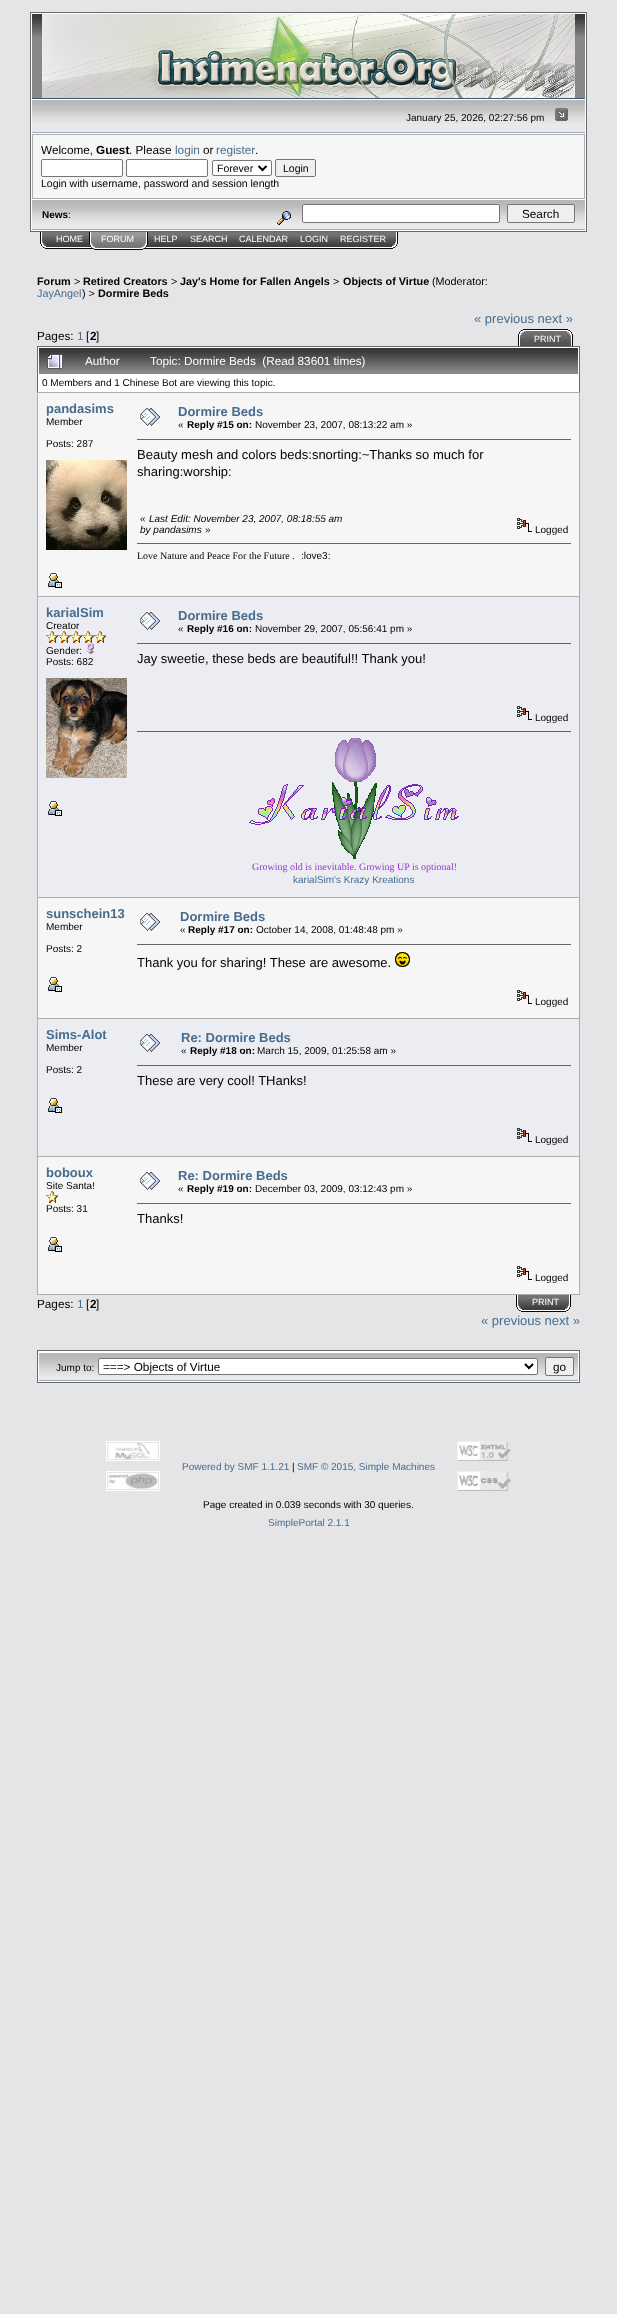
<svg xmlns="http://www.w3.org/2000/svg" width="617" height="2314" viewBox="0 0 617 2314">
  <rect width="100%" height="100%" fill="rgb(229,229,232)"/>
  <rect x="30.5" y="12.5" width="556" height="219" fill="rgb(255,255,255)" stroke="rgb(105,105,105)"/>
  <rect x="32" y="37" width="553" height="61" fill="rgb(136,136,136)"/>
  <image x="32" y="14" width="553" height="23" href="pic1.png"/>
  <rect x="32" y="98" width="553" height="1" fill="rgb(55,85,118)"/>
  <image x="42" y="14" width="533" height="84" href="pic2.png"/>
  <image x="32" y="100" width="553" height="32" href="pic3.png"/>
  <rect x="32" y="132" width="553" height="1" fill="rgb(155,174,191)"/>
  <text x="406" y="121" font-family="Liberation Sans" font-size="10" fill="rgb(0,0,0)">January 25, 2026, 02:27:56 pm</text>
  <image x="555" y="108" width="13" height="13" href="pic4.png"/>
  <rect x="32" y="134" width="553" height="65" fill="rgb(173,173,173)"/>
  <rect x="33" y="135" width="551" height="63" fill="rgb(246,246,246)"/>
  <text x="41" y="154" font-family="Liberation Sans" font-size="11.75" fill="rgb(0,0,0)">Welcome,</text>
  <text x="96" y="154" font-family="Liberation Sans" font-size="11.75" font-weight="bold" fill="rgb(0,0,0)">Guest</text>
  <text x="129" y="154" font-family="Liberation Sans" font-size="11.75" fill="rgb(0,0,0)">. Please</text>
  <text x="175" y="154" font-family="Liberation Sans" font-size="11.75" fill="rgb(71,108,142)">login</text>
  <text x="203" y="154" font-family="Liberation Sans" font-size="11.75" fill="rgb(0,0,0)">or</text>
  <text x="216" y="154" font-family="Liberation Sans" font-size="11.75" fill="rgb(71,108,142)">register</text>
  <text x="255" y="154" font-family="Liberation Sans" font-size="11.75" fill="rgb(0,0,0)">.</text>
  <rect x="41.5" y="159.5" width="81" height="17" rx="1.5" fill="rgb(255,255,255)" stroke="rgb(118,118,118)"/>
  <rect x="126.5" y="159.5" width="81" height="17" rx="1.5" fill="rgb(255,255,255)" stroke="rgb(118,118,118)"/>
  <rect x="212.5" y="160.5" width="59" height="15" rx="1.5" fill="rgb(255,255,255)" stroke="rgb(118,118,118)"/>
  <path d="M258.5 166L262.5 170L266.5 166" fill="none" stroke="rgb(0,0,0)" stroke-width="2"/>
  <text x="217" y="172" font-family="Liberation Sans" font-size="10.5" fill="rgb(0,0,0)">Forever</text>
  <rect x="275.5" y="159.5" width="40" height="17" rx="1.5" fill="rgb(239,239,239)" stroke="rgb(118,118,118)"/>
  <g font-family="Liberation Sans" font-size="10.5" fill="rgb(0,0,0)">
    <text x="283" y="172">Login</text>
    <text x="41" y="187">Login with username, password and session length</text>
  </g>
  <image x="32" y="200" width="228" height="29" href="pic5.png"/>
  <rect x="32" y="229" width="553" height="1" fill="rgb(155,174,191)"/>
  <text x="42" y="218" font-family="Liberation Sans" font-size="10" font-weight="bold" fill="rgb(0,0,0)">News</text>
  <text x="68" y="218" font-family="Liberation Sans" font-size="10" fill="rgb(0,0,0)">:</text>
  <image x="260" y="200" width="325" height="29" href="pic6.png"/>
  <image x="277" y="211" width="14" height="14" href="pic7.png"/>
  <rect x="302.5" y="204.5" width="197" height="18" rx="1.5" fill="rgb(255,255,255)" stroke="rgb(118,118,118)"/>
  <rect x="507.5" y="204.5" width="67" height="18" rx="1.5" fill="rgb(239,239,239)" stroke="rgb(118,118,118)"/>
  <text x="522" y="218" font-family="Liberation Sans" font-size="11.75" fill="rgb(0,0,0)">Search</text>
  <image x="40" y="232" width="10" height="17" href="pic8.png"/>
  <image x="50" y="232" width="39" height="17" href="pic9.png"/>
  <text x="56" y="242" font-family="Liberation Sans" font-size="9" fill="rgb(255,255,255)">HOME</text>
  <image x="89" y="232" width="6" height="18" href="pic10.png"/>
  <image x="95" y="232" width="45" height="18" href="pic11.png"/>
  <text x="101" y="242" font-family="Liberation Sans" font-size="9" fill="rgb(255,255,255)">FORUM</text>
  <image x="140" y="232" width="8" height="18" href="pic12.png"/>
  <image x="148" y="232" width="36" height="17" href="pic13.png"/>
  <text x="154" y="242" font-family="Liberation Sans" font-size="9" fill="rgb(255,255,255)">HELP</text>
  <image x="184" y="232" width="49" height="17" href="pic14.png"/>
  <text x="190" y="242" font-family="Liberation Sans" font-size="9" fill="rgb(255,255,255)">SEARCH</text>
  <image x="233" y="232" width="61" height="17" href="pic15.png"/>
  <text x="239" y="242" font-family="Liberation Sans" font-size="9" fill="rgb(255,255,255)">CALENDAR</text>
  <image x="294" y="232" width="40" height="17" href="pic16.png"/>
  <text x="300" y="242" font-family="Liberation Sans" font-size="9" fill="rgb(255,255,255)">LOGIN</text>
  <image x="334" y="232" width="58" height="17" href="pic17.png"/>
  <text x="340" y="242" font-family="Liberation Sans" font-size="9" fill="rgb(255,255,255)">REGISTER</text>
  <image x="392" y="232" width="6" height="17" href="pic18.png"/>
  <text x="37" y="285" font-family="Liberation Sans" font-size="10.8" font-weight="bold" fill="rgb(0,0,0)">Forum</text>
  <text x="74" y="285" font-family="Liberation Sans" font-size="10.8" fill="rgb(0,0,0)">&gt;</text>
  <text x="83" y="285" font-family="Liberation Sans" font-size="10.8" font-weight="bold" fill="rgb(0,0,0)">Retired Creators</text>
  <text x="171" y="285" font-family="Liberation Sans" font-size="10.8" fill="rgb(0,0,0)">&gt;</text>
  <text x="180" y="285" font-family="Liberation Sans" font-size="10.8" font-weight="bold" fill="rgb(0,0,0)">Jay's Home for Fallen Angels</text>
  <text x="333" y="285" font-family="Liberation Sans" font-size="10.8" fill="rgb(0,0,0)">&gt;</text>
  <text x="343" y="285" font-family="Liberation Sans" font-size="10.8" font-weight="bold" fill="rgb(0,0,0)">Objects of Virtue</text>
  <text x="432" y="285" font-family="Liberation Sans" font-size="10.8" fill="rgb(0,0,0)">(Moderator:</text>
  <text x="37" y="297" font-family="Liberation Sans" font-size="10.8" fill="rgb(71,108,142)">JayAngel</text>
  <text x="82" y="297" font-family="Liberation Sans" font-size="10.8" fill="rgb(0,0,0)">) &gt;</text>
  <text x="98" y="297" font-family="Liberation Sans" font-size="10.8" font-weight="bold" fill="rgb(0,0,0)">Dormire Beds</text>
  <text x="37" y="340" font-family="Liberation Sans" font-size="11.75" fill="rgb(0,0,0)">Pages:</text>
  <text x="77" y="340" font-family="Liberation Sans" font-size="11.75" fill="rgb(71,108,142)">1</text>
  <text x="86" y="340" font-family="Liberation Sans" font-size="11.75" fill="rgb(0,0,0)">[</text>
  <text x="90" y="340" font-family="Liberation Sans" font-size="11.75" font-weight="bold" fill="rgb(0,0,0)">2</text>
  <text x="96" y="340" font-family="Liberation Sans" font-size="11.75" fill="rgb(0,0,0)">]</text>
  <text x="474" y="323" font-family="Liberation Sans" font-size="13" fill="rgb(71,108,142)">« previous next »</text>
  <image x="518" y="329" width="10" height="17" href="pic19.png"/>
  <image x="528" y="329" width="39" height="17" href="pic20.png"/>
  <text x="534" y="342" font-family="Liberation Sans" font-size="9" fill="rgb(255,255,255)">PRINT</text>
  <image x="567" y="329" width="6" height="17" href="pic21.png"/>
  <rect x="38" y="347" width="541" height="45" fill="rgb(255,255,255)"/>
  <rect x="37" y="346" width="543" height="1" fill="rgb(105,105,105)"/>
  <rect x="579" y="346" width="1" height="46" fill="rgb(105,105,105)"/>
  <rect x="37" y="346" width="1" height="46" fill="rgb(105,105,105)"/>
  <rect x="39" y="371" width="539" height="3" fill="rgb(136,136,136)"/>
  <image x="39" y="348" width="36" height="23" href="pic22.png"/>
  <image x="47" y="354" width="16" height="15" href="pic23.png"/>
  <image x="75" y="348" width="69" height="23" href="pic24.png"/>
  <text x="85" y="365" font-family="Liberation Sans" font-size="11.75" fill="rgb(255,255,255)">Author</text>
  <image x="144" y="348" width="434" height="23" href="pic25.png"/>
  <text x="150" y="365" font-family="Liberation Sans" font-size="11.75" fill="rgb(255,255,255)" xml:space="preserve">Topic: Dormire Beds  (Read 83601 times)</text>
  <text x="42" y="386" font-family="Liberation Sans" font-size="10" fill="rgb(0,0,0)">0 Members and 1 Chinese Bot are viewing this topic.</text>
  <rect x="37" y="392" width="543" height="903" fill="rgb(173,173,173)"/>
  <rect x="38" y="393" width="541" height="203" fill="rgb(246,246,246)"/>
  <text x="46" y="413" font-family="Liberation Sans" font-size="13" font-weight="bold" fill="rgb(71,108,142)">pandasims</text>
  <g font-family="Liberation Sans" font-size="10" fill="rgb(0,0,0)">
    <text x="46" y="425">Member</text>
    <text x="46" y="447">Posts: 287</text>
  </g>
  <image x="46" y="460" width="81" height="90" href="pic26.png"/>
  <image x="48" y="573" width="14" height="15" href="pic27.png"/>
  <image x="140" y="408" width="20" height="18" href="pic28.png"/>
  <text x="178" y="416" font-family="Liberation Sans" font-size="13" font-weight="bold" fill="rgb(71,108,142)">Dormire Beds</text>
  <text x="178" y="428" font-family="Liberation Sans" font-size="10" fill="rgb(0,0,0)">«</text>
  <text x="187" y="428" font-family="Liberation Sans" font-size="10" font-weight="bold" fill="rgb(0,0,0)">Reply #15 on:</text>
  <text x="255" y="428" font-family="Liberation Sans" font-size="10" fill="rgb(0,0,0)">November 23, 2007, 08:13:22 am »</text>
  <rect x="137" y="439" width="434" height="1" fill="rgb(102,102,102)"/>
  <g font-family="Liberation Sans" font-size="13" fill="rgb(0,0,0)">
    <text>
      <tspan x="137" y="459">Beauty mesh and colors beds:snorting:~Thanks so much for</tspan>
      <tspan x="137" y="476">sharing:worship:</tspan>
    </text>
  </g>
  <text x="140" y="522" font-family="Liberation Sans" font-size="10" fill="rgb(0,0,0)">«</text>
  <g font-family="Liberation Sans" font-size="10" font-style="italic" fill="rgb(0,0,0)">
    <text x="149" y="522">Last Edit: November 23, 2007, 08:18:55 am</text>
    <text x="140" y="533">by pandasims</text>
  </g>
  <text x="205" y="533" font-family="Liberation Sans" font-size="10" fill="rgb(0,0,0)">»</text>
  <image x="517" y="518" width="15" height="14" href="pic29.png"/>
  <text x="535" y="533" font-family="Liberation Sans" font-size="10" fill="rgb(0,0,0)">Logged</text>
  <rect x="137" y="543" width="434" height="1" fill="rgb(102,102,102)"/>
  <text x="137" y="559" font-family="Liberation Serif" font-size="10" fill="rgb(0,0,0)">Love Nature and Peace For the Future .</text>
  <text x="301" y="559" font-family="Liberation Sans" font-size="10" fill="rgb(0,0,0)">:love3:</text>
  <rect x="38" y="597" width="541" height="300" fill="rgb(236,237,243)"/>
  <text x="46" y="617" font-family="Liberation Sans" font-size="13" font-weight="bold" fill="rgb(71,108,142)">karialSim</text>
  <text x="46" y="629" font-family="Liberation Sans" font-size="10" fill="rgb(0,0,0)">Creator</text>
  <image x="46" y="631" width="12" height="12" href="pic30.png"/>
  <image x="58" y="631" width="12" height="12" href="pic30.png"/>
  <image x="70" y="631" width="12" height="12" href="pic30.png"/>
  <image x="82" y="631" width="12" height="12" href="pic30.png"/>
  <image x="94" y="631" width="12" height="12" href="pic30.png"/>
  <text x="46" y="654" font-family="Liberation Sans" font-size="10" fill="rgb(0,0,0)">Gender:</text>
  <image x="87" y="643" width="7" height="11" href="pic31.png"/>
  <text x="46" y="665" font-family="Liberation Sans" font-size="10" fill="rgb(0,0,0)">Posts: 682</text>
  <image x="46" y="678" width="81" height="100" href="pic32.png"/>
  <image x="48" y="801" width="14" height="15" href="pic33.png"/>
  <image x="140" y="612" width="20" height="18" href="pic34.png"/>
  <text x="178" y="620" font-family="Liberation Sans" font-size="13" font-weight="bold" fill="rgb(71,108,142)">Dormire Beds</text>
  <text x="178" y="632" font-family="Liberation Sans" font-size="10" fill="rgb(0,0,0)">«</text>
  <text x="187" y="632" font-family="Liberation Sans" font-size="10" font-weight="bold" fill="rgb(0,0,0)">Reply #16 on:</text>
  <text x="255" y="632" font-family="Liberation Sans" font-size="10" fill="rgb(0,0,0)">November 29, 2007, 05:56:41 pm »</text>
  <rect x="137" y="643" width="434" height="1" fill="rgb(102,102,102)"/>
  <text x="137" y="663" font-family="Liberation Sans" font-size="13" fill="rgb(0,0,0)">Jay sweetie, these beds are beautiful!! Thank you!</text>
  <image x="517" y="706" width="15" height="14" href="pic35.png"/>
  <text x="535" y="721" font-family="Liberation Sans" font-size="10" fill="rgb(0,0,0)">Logged</text>
  <rect x="137" y="731" width="434" height="1" fill="rgb(102,102,102)"/>
  <image x="249" y="738" width="210" height="121" href="pic36.png"/>
  <text x="252" y="870" font-family="Liberation Serif" font-size="10" fill="rgb(153,50,204)">Growing old is inevitable. Growing UP is optional!</text>
  <text x="293" y="883" font-family="Liberation Sans" font-size="10" fill="rgb(71,108,142)">karialSim's Krazy Kreations</text>
  <rect x="38" y="898" width="541" height="120" fill="rgb(246,246,246)"/>
  <text x="46" y="918" font-family="Liberation Sans" font-size="13" font-weight="bold" fill="rgb(71,108,142)">sunschein13</text>
  <g font-family="Liberation Sans" font-size="10" fill="rgb(0,0,0)">
    <text x="46" y="930">Member</text>
    <text x="46" y="952">Posts: 2</text>
  </g>
  <image x="48" y="977" width="14" height="15" href="pic27.png"/>
  <image x="140" y="913" width="20" height="18" href="pic28.png"/>
  <text x="180" y="921" font-family="Liberation Sans" font-size="13" font-weight="bold" fill="rgb(71,108,142)">Dormire Beds</text>
  <text x="180" y="933" font-family="Liberation Sans" font-size="10" fill="rgb(0,0,0)">«</text>
  <text x="188" y="933" font-family="Liberation Sans" font-size="10" font-weight="bold" fill="rgb(0,0,0)">Reply #17 on:</text>
  <text x="256" y="933" font-family="Liberation Sans" font-size="10" fill="rgb(0,0,0)">October 14, 2008, 01:48:48 pm »</text>
  <rect x="137" y="944" width="434" height="1" fill="rgb(102,102,102)"/>
  <text x="137" y="967" font-family="Liberation Sans" font-size="13" fill="rgb(0,0,0)">Thank you for sharing! These are awesome.</text>
  <image x="395" y="952" width="15" height="15" href="pic37.png"/>
  <image x="517" y="990" width="15" height="14" href="pic29.png"/>
  <text x="535" y="1005" font-family="Liberation Sans" font-size="10" fill="rgb(0,0,0)">Logged</text>
  <rect x="38" y="1019" width="541" height="137" fill="rgb(236,237,243)"/>
  <text x="46" y="1039" font-family="Liberation Sans" font-size="13" font-weight="bold" fill="rgb(71,108,142)">Sims-Alot</text>
  <g font-family="Liberation Sans" font-size="10" fill="rgb(0,0,0)">
    <text x="46" y="1051">Member</text>
    <text x="46" y="1073">Posts: 2</text>
  </g>
  <image x="48" y="1098" width="14" height="15" href="pic33.png"/>
  <image x="140" y="1034" width="20" height="18" href="pic34.png"/>
  <text x="181" y="1042" font-family="Liberation Sans" font-size="13" font-weight="bold" fill="rgb(71,108,142)">Re: Dormire Beds</text>
  <text x="181" y="1054" font-family="Liberation Sans" font-size="10" fill="rgb(0,0,0)">«</text>
  <text x="190" y="1054" font-family="Liberation Sans" font-size="10" font-weight="bold" fill="rgb(0,0,0)">Reply #18 on:</text>
  <text x="257" y="1054" font-family="Liberation Sans" font-size="10" fill="rgb(0,0,0)">March 15, 2009, 01:25:58 am »</text>
  <rect x="137" y="1065" width="434" height="1" fill="rgb(102,102,102)"/>
  <text x="137" y="1085" font-family="Liberation Sans" font-size="13" fill="rgb(0,0,0)">These are very cool! THanks!</text>
  <image x="517" y="1128" width="15" height="14" href="pic35.png"/>
  <text x="535" y="1143" font-family="Liberation Sans" font-size="10" fill="rgb(0,0,0)">Logged</text>
  <rect x="38" y="1157" width="541" height="137" fill="rgb(246,246,246)"/>
  <text x="46" y="1177" font-family="Liberation Sans" font-size="13" font-weight="bold" fill="rgb(71,108,142)">boboux</text>
  <text x="46" y="1189" font-family="Liberation Sans" font-size="10" fill="rgb(0,0,0)">Site Santa!</text>
  <image x="46" y="1191" width="12" height="12" href="pic38.png"/>
  <text x="46" y="1212" font-family="Liberation Sans" font-size="10" fill="rgb(0,0,0)">Posts: 31</text>
  <image x="48" y="1237" width="14" height="15" href="pic27.png"/>
  <image x="140" y="1172" width="20" height="18" href="pic28.png"/>
  <text x="178" y="1180" font-family="Liberation Sans" font-size="13" font-weight="bold" fill="rgb(71,108,142)">Re: Dormire Beds</text>
  <text x="178" y="1192" font-family="Liberation Sans" font-size="10" fill="rgb(0,0,0)">«</text>
  <text x="187" y="1192" font-family="Liberation Sans" font-size="10" font-weight="bold" fill="rgb(0,0,0)">Reply #19 on:</text>
  <text x="255" y="1192" font-family="Liberation Sans" font-size="10" fill="rgb(0,0,0)">December 03, 2009, 03:12:43 pm »</text>
  <rect x="137" y="1203" width="434" height="1" fill="rgb(102,102,102)"/>
  <text x="137" y="1223" font-family="Liberation Sans" font-size="13" fill="rgb(0,0,0)">Thanks!</text>
  <image x="517" y="1266" width="15" height="14" href="pic29.png"/>
  <text x="535" y="1281" font-family="Liberation Sans" font-size="10" fill="rgb(0,0,0)">Logged</text>
  <text x="37" y="1308" font-family="Liberation Sans" font-size="11.75" fill="rgb(0,0,0)">Pages:</text>
  <text x="77" y="1308" font-family="Liberation Sans" font-size="11.75" fill="rgb(71,108,142)">1</text>
  <text x="86" y="1308" font-family="Liberation Sans" font-size="11.75" fill="rgb(0,0,0)">[</text>
  <text x="90" y="1308" font-family="Liberation Sans" font-size="11.75" font-weight="bold" fill="rgb(0,0,0)">2</text>
  <text x="96" y="1308" font-family="Liberation Sans" font-size="11.75" fill="rgb(0,0,0)">]</text>
  <image x="516" y="1295" width="10" height="17" href="pic8.png"/>
  <image x="526" y="1295" width="39" height="17" href="pic9.png"/>
  <text x="532" y="1305" font-family="Liberation Sans" font-size="9" fill="rgb(255,255,255)">PRINT</text>
  <image x="565" y="1295" width="6" height="17" href="pic18.png"/>
  <text x="481" y="1325" font-family="Liberation Sans" font-size="13" fill="rgb(71,108,142)">« previous next »</text>
  <rect x="37.5" y="1350.5" width="542" height="32" fill="rgb(255,255,255)" stroke="rgb(105,105,105)"/>
  <image x="39" y="1353" width="539" height="27" href="pic39.png"/>
  <rect x="39" y="1380" width="539" height="1" fill="rgb(155,174,191)"/>
  <text x="56" y="1371" font-family="Liberation Sans" font-size="10" fill="rgb(0,0,0)">Jump to:</text>
  <rect x="98.5" y="1358.5" width="439" height="16" rx="1.5" fill="rgb(255,255,255)" stroke="rgb(118,118,118)"/>
  <path d="M525 1364L529 1368L533 1364" fill="none" stroke="rgb(0,0,0)" stroke-width="2"/>
  <text x="103" y="1371" font-family="Liberation Sans" font-size="11.75" fill="rgb(0,0,0)">===&gt; Objects of Virtue</text>
  <rect x="545.5" y="1357.5" width="28" height="18" rx="1.5" fill="rgb(239,239,239)" stroke="rgb(118,118,118)"/>
  <text x="553" y="1371" font-family="Liberation Sans" font-size="11.75" fill="rgb(0,0,0)">go</text>
  <image x="106" y="1441" width="54" height="20" href="pic40.png"/>
  <image x="106" y="1471" width="54" height="20" href="pic41.png"/>
  <text x="182" y="1470" font-family="Liberation Sans" font-size="10" fill="rgb(71,108,142)">Powered by SMF 1.1.21</text>
  <text x="292" y="1470" font-family="Liberation Sans" font-size="10" fill="rgb(0,0,0)">|</text>
  <text x="297" y="1470" font-family="Liberation Sans" font-size="10" fill="rgb(71,108,142)">SMF © 2015, Simple Machines</text>
  <image x="457" y="1441" width="54" height="20" href="pic42.png"/>
  <image x="457" y="1471" width="54" height="20" href="pic43.png"/>
  <text x="203" y="1508" font-family="Liberation Sans" font-size="10" fill="rgb(0,0,0)">Page created in 0.039 seconds with 30 queries.</text>
  <text x="268" y="1526" font-family="Liberation Sans" font-size="10" fill="rgb(71,108,142)">SimplePortal 2.1.1</text>
</svg>
